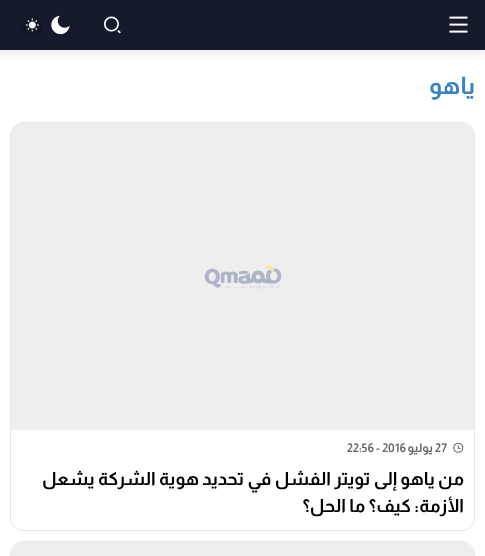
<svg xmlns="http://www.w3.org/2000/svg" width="485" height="556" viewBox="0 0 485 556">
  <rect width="100%" height="100%" fill="rgb(255,255,255)"/>
  <rect x="-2" y="0" width="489" height="54" fill="rgba(0,0,0,0.07)" filter="blur(3.5px)"/>
  <rect x="0" y="0" width="485" height="50" fill="rgb(21,26,45)"/>
  <image x="449" y="16" width="19" height="17" href="pic1.png"/>
  <image x="104" y="16" width="17" height="18" href="pic2.png"/>
  <image x="51" y="15" width="19" height="20" href="pic3.png"/>
  <circle cx="32" cy="25" r="10" fill="rgb(18,23,39)"/>
  <image x="25" y="18" width="14" height="14" href="pic4.png"/>
  <text x="475" y="94" font-family="Almarai" font-size="24" font-weight="bold" direction="rtl" fill="rgb(55,130,197)">ياهو</text>
  <rect x="10.5" y="122.5" width="464" height="408" rx="12.5" fill="none" stroke="rgb(230,230,230)"/>
  <path d="M24 123H461C468 123 474 129 474 136V430H11V136C11 129 17 123 24 123Z" fill="rgb(238,238,238)"/>
  <image x="204" y="265" width="78" height="24" href="pic5.png"/>
  <image x="453" y="442" width="11" height="11" href="pic6.png"/>
  <text x="435" y="452" font-family="Almarai" font-size="12" font-weight="bold" fill="rgb(102,102,102)">27</text>
  <text x="433" y="452" font-family="Almarai" font-size="12" font-weight="bold" direction="rtl" fill="rgb(102,102,102)">يوليو</text>
  <text x="347" y="452" font-family="Almarai" font-size="12" font-weight="bold" fill="rgb(102,102,102)">22:56 - 2016</text>
  <g font-family="Almarai" font-size="18" font-weight="bold" direction="rtl" fill="rgb(0,0,0)">
    <text>
      <tspan x="464" y="485">من ياهو إلى تويتر الفشل في تحديد هوية الشركة يشعل</tspan>
      <tspan x="464" y="512">الأزمة: كيف؟ ما الحل؟</tspan>
    </text>
  </g>
  <rect x="10.5" y="541.5" width="464" height="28" rx="12.5" fill="none" stroke="rgb(230,230,230)"/>
  <path d="M24 542H461C468 542 474 548 474 555V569H11V555C11 548 17 542 24 542Z" fill="rgb(238,238,238)"/>
</svg>
